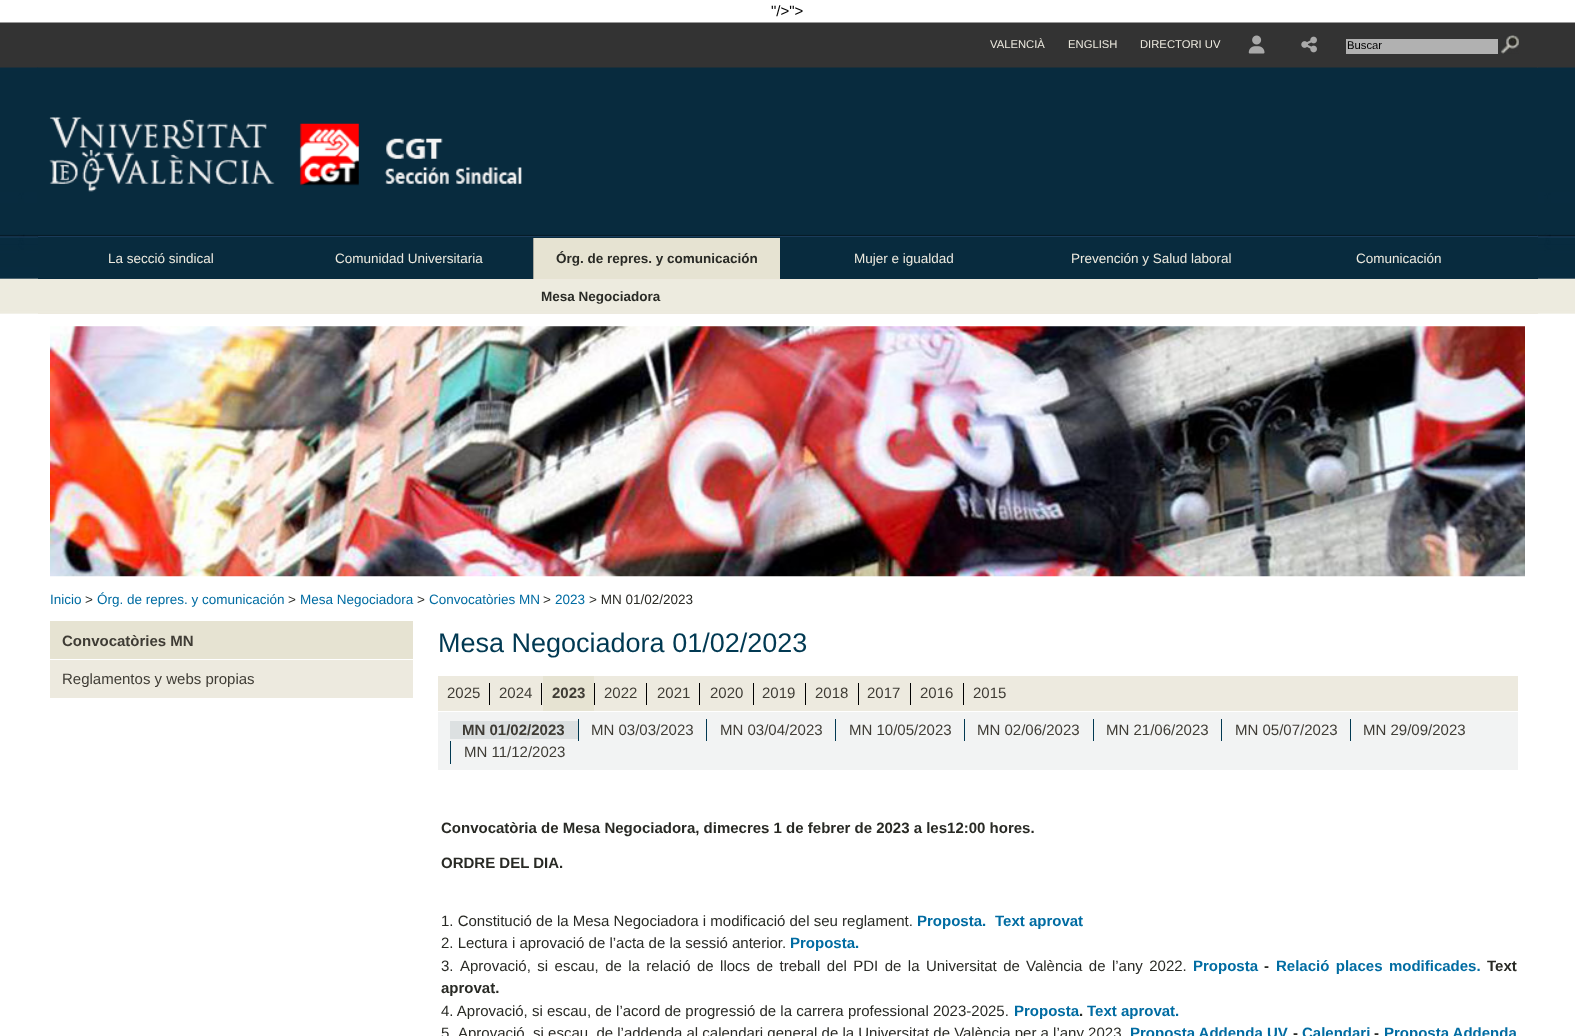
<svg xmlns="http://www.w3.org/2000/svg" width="1575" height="1036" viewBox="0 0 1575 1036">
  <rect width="100%" height="100%" fill="rgb(255,255,255)"/>
  <text x="771" y="16" font-family="Liberation Sans" font-size="15" fill="rgb(0,0,0)">"/&gt;"&gt;</text>
  <image x="0" y="22" width="1575" height="292" href="pic1.png"/>
  <rect x="38" y="67" width="1500" height="1" fill="rgb(51,51,51)"/>
  <g font-family="Liberation Sans" font-size="11.25" fill="rgb(237,234,223)">
    <text x="990" y="48">VALENCIÀ</text>
    <text x="1068" y="48">ENGLISH</text>
    <text x="1140" y="48">DIRECTORI UV</text>
  </g>
  <image x="1248" y="35" width="17" height="19" href="pic2.png"/>
  <image x="1301" y="36" width="16" height="17" href="pic3.png"/>
  <rect x="1346" y="39" width="152" height="15" fill="rgb(177,177,177)"/>
  <text x="1347" y="49" font-family="Liberation Sans" font-size="11.25" fill="rgb(0,0,0)">Buscar</text>
  <image x="1501" y="35" width="18" height="19" href="pic4.png"/>
  <rect x="1537" y="235" width="1" height="1" fill="rgb(8,43,62)"/>
  <image x="37" y="67" width="1501" height="170" href="pic5.png"/>
  <image x="49" y="117" width="473" height="75" href="pic6.png"/>
  <rect x="38" y="237" width="1500" height="42" fill="rgb(8,43,62)"/>
  <rect x="38" y="236" width="1500" height="1" fill="rgb(26,59,90)"/>
  <g font-family="Liberation Sans" font-size="13.5" fill="rgb(237,234,223)">
    <text x="108" y="263">La secció sindical</text>
    <text x="335" y="263">Comunidad Universitaria</text>
  </g>
  <rect x="534" y="238" width="246" height="41" fill="rgb(230,227,210)"/>
  <rect x="533" y="238" width="1" height="41" fill="rgb(166,166,156)"/>
  <text x="556" y="263" font-family="Liberation Sans" font-size="13.5" font-weight="bold" fill="rgb(41,42,37)">Órg. de repres. y comunicación</text>
  <g font-family="Liberation Sans" font-size="13.5" fill="rgb(237,234,223)">
    <text x="854" y="263">Mujer e igualdad</text>
    <text x="1071" y="263">Prevención y Salud laboral</text>
    <text x="1356" y="263">Comunicación</text>
  </g>
  <rect x="38" y="313" width="1500" height="1" fill="rgb(237,234,223)"/>
  <text x="541" y="301" font-family="Liberation Sans" font-size="13.5" font-weight="bold" fill="rgb(41,42,37)">Mesa Negociadora</text>
  <image x="50" y="326" width="1475" height="251" href="pic7.png"/>
  <text x="50" y="604" font-family="Liberation Sans" font-size="13.5" fill="rgb(1,108,162)">Inicio</text>
  <text x="85" y="604" font-family="Liberation Sans" font-size="13.5" fill="rgb(41,42,37)">&gt;</text>
  <text x="97" y="604" font-family="Liberation Sans" font-size="13.5" fill="rgb(1,108,162)">Órg. de repres. y comunicación</text>
  <text x="288" y="604" font-family="Liberation Sans" font-size="13.5" fill="rgb(41,42,37)">&gt;</text>
  <text x="300" y="604" font-family="Liberation Sans" font-size="13.5" fill="rgb(1,108,162)">Mesa Negociadora</text>
  <text x="417" y="604" font-family="Liberation Sans" font-size="13.5" fill="rgb(41,42,37)">&gt;</text>
  <text x="429" y="604" font-family="Liberation Sans" font-size="13.5" fill="rgb(1,108,162)">Convocatòries MN</text>
  <text x="543" y="604" font-family="Liberation Sans" font-size="13.5" fill="rgb(41,42,37)">&gt;</text>
  <text x="555" y="604" font-family="Liberation Sans" font-size="13.5" fill="rgb(1,108,162)">2023</text>
  <text x="589" y="604" font-family="Liberation Sans" font-size="13.5" fill="rgb(41,42,37)">&gt; MN 01/02/2023</text>
  <rect x="50" y="660" width="363" height="38" fill="rgb(237,234,223)"/>
  <rect x="50" y="621" width="363" height="38" fill="rgb(230,227,210)"/>
  <text x="62" y="646" font-family="Liberation Sans" font-size="15" font-weight="bold" fill="rgb(63,60,53)">Convocatòries MN</text>
  <text x="62" y="684" font-family="Liberation Sans" font-size="15" fill="rgb(63,60,53)">Reglamentos y webs propias</text>
  <text x="438" y="652" font-family="Liberation Sans" font-size="27" fill="rgb(1,57,82)">Mesa Negociadora 01/02/2023</text>
  <rect x="438" y="676" width="1080" height="35" fill="rgb(237,234,223)"/>
  <text x="447" y="698" font-family="Liberation Sans" font-size="15" fill="rgb(63,60,53)">2025</text>
  <rect x="489" y="683" width="1" height="22" fill="rgb(0,0,0)"/>
  <text x="499" y="698" font-family="Liberation Sans" font-size="15" fill="rgb(63,60,53)">2024</text>
  <rect x="541" y="683" width="1" height="22" fill="rgb(0,0,0)"/>
  <rect x="543" y="676" width="51" height="35" fill="rgb(230,227,210)"/>
  <text x="552" y="698" font-family="Liberation Sans" font-size="15" font-weight="bold" fill="rgb(63,60,53)">2023</text>
  <rect x="594" y="683" width="1" height="22" fill="rgb(0,0,0)"/>
  <text x="604" y="698" font-family="Liberation Sans" font-size="15" fill="rgb(63,60,53)">2022</text>
  <rect x="646" y="683" width="1" height="22" fill="rgb(0,0,0)"/>
  <text x="657" y="698" font-family="Liberation Sans" font-size="15" fill="rgb(63,60,53)">2021</text>
  <rect x="699" y="683" width="1" height="22" fill="rgb(0,0,0)"/>
  <text x="710" y="698" font-family="Liberation Sans" font-size="15" fill="rgb(63,60,53)">2020</text>
  <rect x="753" y="683" width="1" height="22" fill="rgb(0,0,0)"/>
  <text x="762" y="698" font-family="Liberation Sans" font-size="15" fill="rgb(63,60,53)">2019</text>
  <rect x="805" y="683" width="1" height="22" fill="rgb(0,0,0)"/>
  <text x="815" y="698" font-family="Liberation Sans" font-size="15" fill="rgb(63,60,53)">2018</text>
  <rect x="858" y="683" width="1" height="22" fill="rgb(0,0,0)"/>
  <text x="867" y="698" font-family="Liberation Sans" font-size="15" fill="rgb(63,60,53)">2017</text>
  <rect x="910" y="683" width="1" height="22" fill="rgb(0,0,0)"/>
  <text x="920" y="698" font-family="Liberation Sans" font-size="15" fill="rgb(63,60,53)">2016</text>
  <rect x="963" y="683" width="1" height="22" fill="rgb(0,0,0)"/>
  <text x="973" y="698" font-family="Liberation Sans" font-size="15" fill="rgb(63,60,53)">2015</text>
  <rect x="438" y="712" width="1080" height="58" fill="rgb(242,243,243)"/>
  <rect x="450" y="721" width="128" height="18" fill="rgb(220,224,225)"/>
  <text x="462" y="735" font-family="Liberation Sans" font-size="15" font-weight="bold" fill="rgb(63,60,53)">MN 01/02/2023</text>
  <rect x="578" y="719" width="1" height="22" fill="rgb(1,57,82)"/>
  <text x="591" y="735" font-family="Liberation Sans" font-size="15" fill="rgb(63,60,53)">MN 03/03/2023</text>
  <rect x="706" y="719" width="1" height="22" fill="rgb(1,57,82)"/>
  <text x="720" y="735" font-family="Liberation Sans" font-size="15" fill="rgb(63,60,53)">MN 03/04/2023</text>
  <rect x="835" y="719" width="1" height="22" fill="rgb(1,57,82)"/>
  <text x="849" y="735" font-family="Liberation Sans" font-size="15" fill="rgb(63,60,53)">MN 10/05/2023</text>
  <rect x="964" y="719" width="1" height="22" fill="rgb(1,57,82)"/>
  <text x="977" y="735" font-family="Liberation Sans" font-size="15" fill="rgb(63,60,53)">MN 02/06/2023</text>
  <rect x="1093" y="719" width="1" height="22" fill="rgb(1,57,82)"/>
  <text x="1106" y="735" font-family="Liberation Sans" font-size="15" fill="rgb(63,60,53)">MN 21/06/2023</text>
  <rect x="1221" y="719" width="1" height="22" fill="rgb(1,57,82)"/>
  <text x="1235" y="735" font-family="Liberation Sans" font-size="15" fill="rgb(63,60,53)">MN 05/07/2023</text>
  <rect x="1350" y="719" width="1" height="22" fill="rgb(1,57,82)"/>
  <text x="1363" y="735" font-family="Liberation Sans" font-size="15" fill="rgb(63,60,53)">MN 29/09/2023</text>
  <rect x="450" y="741" width="1" height="23" fill="rgb(1,57,82)"/>
  <text x="464" y="757" font-family="Liberation Sans" font-size="15" fill="rgb(63,60,53)">MN 11/12/2023</text>
  <g font-family="Liberation Sans" font-size="15" font-weight="bold" fill="rgb(41,42,37)">
    <text x="441" y="833">Convocatòria de Mesa Negociadora, dimecres 1 de febrer de 2023 a les12:00 hores.</text>
    <text x="441" y="868">ORDRE DEL DIA.</text>
  </g>
  <text x="441" y="926" font-family="Liberation Sans" font-size="15" fill="rgb(41,42,37)">1. Constitució de la Mesa Negociadora i modificació del seu reglament.</text>
  <g font-family="Liberation Sans" font-size="15" font-weight="bold" fill="rgb(1,108,162)">
    <text x="917" y="926">Proposta.</text>
    <text x="995" y="926">Text aprovat</text>
  </g>
  <text x="441" y="948" font-family="Liberation Sans" font-size="15" fill="rgb(41,42,37)">2. Lectura i aprovació de l’acta de la sessió anterior.</text>
  <text x="790" y="948" font-family="Liberation Sans" font-size="15" font-weight="bold" fill="rgb(1,108,162)">Proposta.</text>
  <g font-family="Liberation Sans" font-size="15" fill="rgb(41,42,37)">
    <text x="441" y="971">3.</text>
    <text x="460" y="971" word-spacing="2.25">Aprovació, si escau, de la relació de llocs de treball del PDI de la Universitat de</text>
    <text x="1026" y="971" word-spacing="2.25">València de l’any 2022.</text>
  </g>
  <text x="1193" y="971" font-family="Liberation Sans" font-size="15" font-weight="bold" fill="rgb(1,108,162)">Proposta</text>
  <text x="1264" y="971" font-family="Liberation Sans" font-size="15" font-weight="bold" fill="rgb(41,42,37)">-</text>
  <text x="1276" y="971" word-spacing="2.25" font-family="Liberation Sans" font-size="15" font-weight="bold" fill="rgb(1,108,162)">Relació places modificades.</text>
  <g font-family="Liberation Sans" font-size="15" font-weight="bold" fill="rgb(41,42,37)">
    <text x="1487" y="971">Text</text>
    <text x="441" y="993">aprovat.</text>
  </g>
  <text x="441" y="1016" font-family="Liberation Sans" font-size="15" fill="rgb(41,42,37)">4. Aprovació, si escau, de l’acord de progressió de la carrera professional 2023-2025.</text>
  <text x="1014" y="1016" font-family="Liberation Sans" font-size="15" font-weight="bold" fill="rgb(1,108,162)">Proposta</text>
  <text x="1079" y="1016" font-family="Liberation Sans" font-size="15" font-weight="bold" fill="rgb(41,42,37)">.</text>
  <text x="1087" y="1016" font-family="Liberation Sans" font-size="15" font-weight="bold" fill="rgb(1,108,162)">Text aprovat.</text>
  <g font-family="Liberation Sans" font-size="15" fill="rgb(41,42,37)">
    <text x="441" y="1038">5</text>
    <text x="458" y="1038">Aprovació, si escau, de l’addenda al calendari general de la Universitat de València per a l’any 2023</text>
  </g>
  <text x="1130" y="1038" font-family="Liberation Sans" font-size="15" font-weight="bold" fill="rgb(1,108,162)">Proposta Addenda UV</text>
  <text x="1293" y="1038" font-family="Liberation Sans" font-size="15" font-weight="bold" fill="rgb(41,42,37)">-</text>
  <text x="1302" y="1038" font-family="Liberation Sans" font-size="15" font-weight="bold" fill="rgb(1,108,162)">Calendari</text>
  <text x="1374" y="1038" font-family="Liberation Sans" font-size="15" font-weight="bold" fill="rgb(41,42,37)">-</text>
  <text x="1384" y="1038" font-family="Liberation Sans" font-size="15" font-weight="bold" fill="rgb(1,108,162)">Proposta Addenda</text>
</svg>
